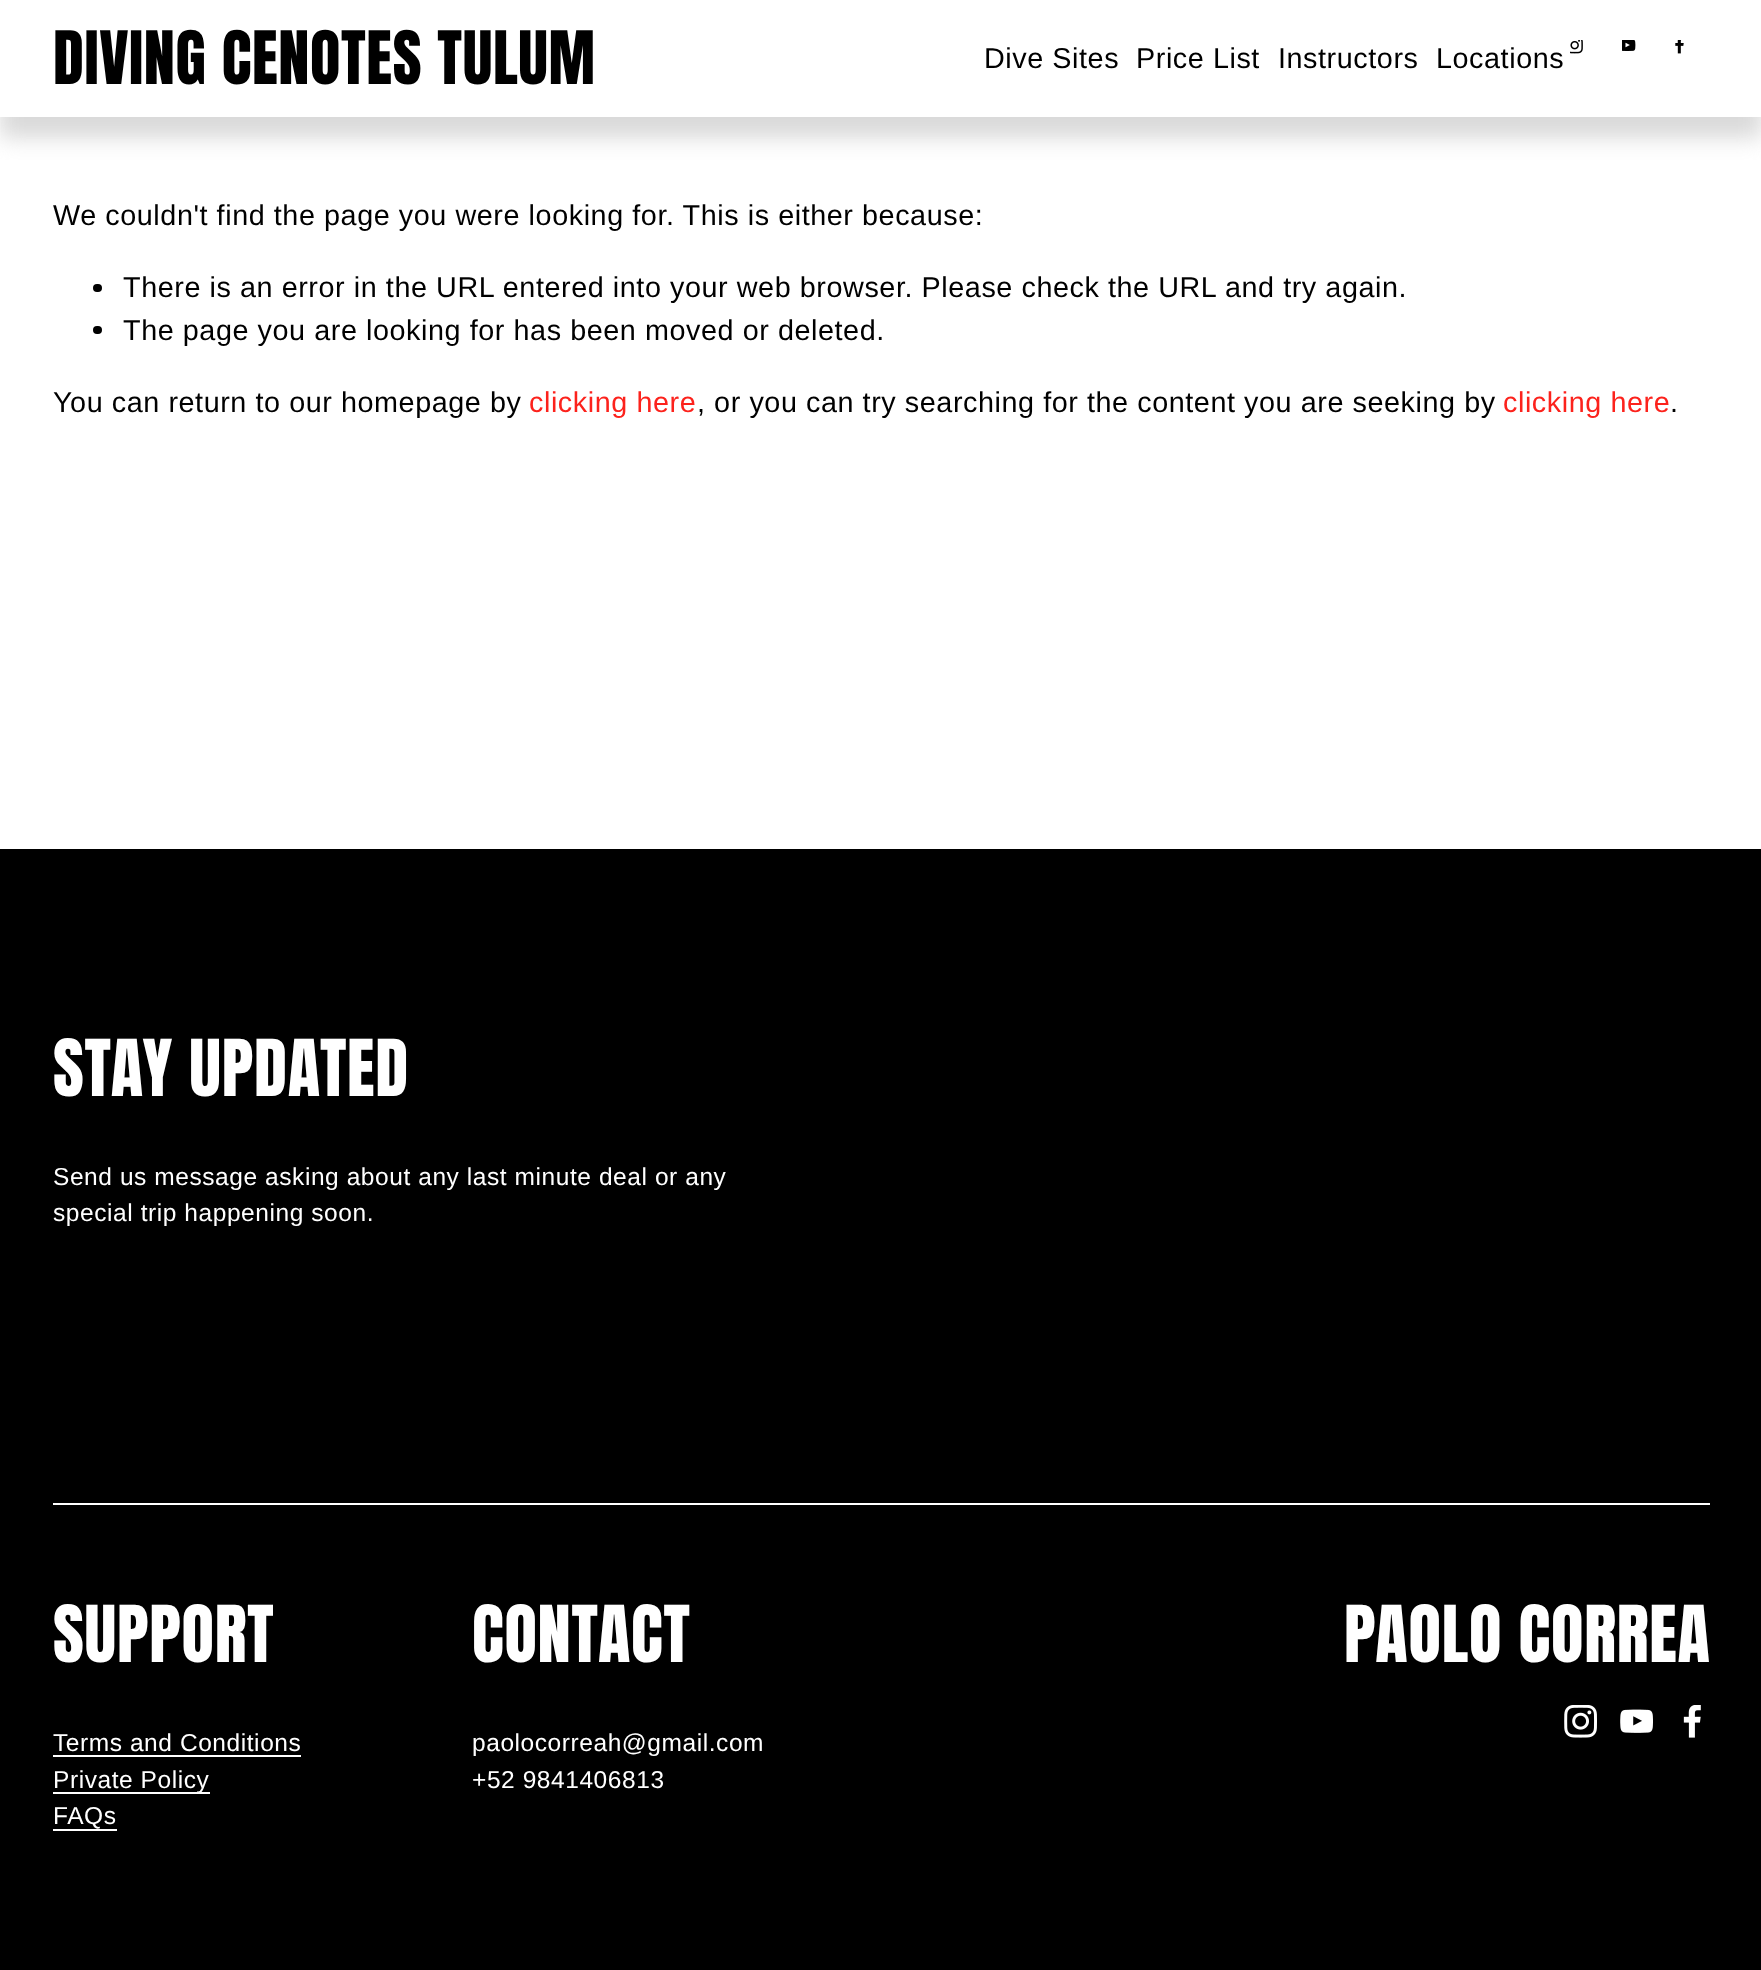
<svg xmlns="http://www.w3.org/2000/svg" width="1761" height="1970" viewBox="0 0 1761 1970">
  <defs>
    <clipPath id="clip1"><rect x="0" y="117" width="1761" height="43"/></clipPath>
  </defs>
  <rect width="100%" height="100%" fill="rgb(255,255,255)"/>
  <g clip-path="url(#clip1)">
    <rect x="0" y="21" width="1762" height="117" fill="rgb(217,217,217)" filter="blur(10.5px)"/>
  </g>
  <text x="53" y="84" font-family="Anton" font-size="62.5" letter-spacing="0.6" fill="rgb(0,0,0)">DIVING CENOTES TULUM</text>
  <g font-family="Liberation Sans" font-size="28.75" letter-spacing="0.57" fill="rgb(0,0,0)">
    <text x="984" y="68">Dive Sites</text>
    <text x="1136" y="68">Price List</text>
    <text x="1278" y="68">Instructors</text>
    <text x="1436" y="68">Locations</text>
  </g>
  <image x="1570" y="40" width="13" height="14" href="pic1.png"/>
  <image x="1622" y="40" width="14" height="11" href="pic2.png"/>
  <image x="1675" y="40" width="9" height="14" href="pic3.png"/>
  <text x="53" y="225" font-family="Liberation Sans" font-size="28.75" letter-spacing="0.57" fill="rgb(0,0,0)">We couldn't find the page you were looking for. This is either because:</text>
  <rect x="93" y="284" width="9" height="8" rx="4" fill="rgb(0,0,0)"/>
  <text x="123" y="297" font-family="Liberation Sans" font-size="28.75" letter-spacing="0.57" fill="rgb(0,0,0)">There is an error in the URL entered into your web browser. Please check the URL and try again.</text>
  <rect x="93" y="326" width="9" height="8" rx="4" fill="rgb(0,0,0)"/>
  <g font-family="Liberation Sans" font-size="28.75" letter-spacing="0.57" fill="rgb(0,0,0)">
    <text x="123" y="340">The page you are looking for has been moved or deleted.</text>
    <text x="53" y="412">You can return to our homepage by</text>
  </g>
  <text x="529" y="412" font-family="Liberation Sans" font-size="28.75" letter-spacing="0.57" fill="rgb(252,34,28)">clicking here</text>
  <text x="697" y="412" font-family="Liberation Sans" font-size="28.75" letter-spacing="0.57" fill="rgb(0,0,0)">, or you can try searching for the content you are seeking by</text>
  <text x="1503" y="412" font-family="Liberation Sans" font-size="28.75" letter-spacing="0.57" fill="rgb(252,34,28)">clicking here</text>
  <text x="1670" y="412" font-family="Liberation Sans" font-size="28.75" letter-spacing="0.57" fill="rgb(0,0,0)">.</text>
  <rect x="0" y="849" width="1761" height="1121" fill="rgb(0,0,0)"/>
  <text x="53" y="1096" font-family="Anton" font-size="66.75" letter-spacing="0.75" fill="rgb(255,255,255)">STAY UPDATED</text>
  <g font-family="Liberation Sans" font-size="24.5" letter-spacing="0.57" fill="rgb(255,255,255)">
    <text>
      <tspan x="53" y="1185">Send us message asking about any last minute deal or any</tspan>
      <tspan x="53" y="1221">special trip happening soon.</tspan>
    </text>
  </g>
  <rect x="53" y="1503" width="1657" height="2" fill="rgb(255,255,255)"/>
  <text x="53" y="1662" font-family="Anton" font-size="66.75" letter-spacing="0.75" fill="rgb(255,255,255)">SUPPORT</text>
  <text x="53" y="1751" font-family="Liberation Sans" font-size="24.5" letter-spacing="0.57" fill="rgb(255,255,255)">Terms and Conditions</text>
  <rect x="53" y="1755" width="248" height="2" fill="rgb(255,255,255)"/>
  <rect x="53" y="1792" width="157" height="2" fill="rgb(255,255,255)"/>
  <g font-family="Liberation Sans" font-size="24.5" letter-spacing="0.57" fill="rgb(255,255,255)">
    <text>
      <tspan x="53" y="1788">Private Policy</tspan>
      <tspan x="53" y="1824">FAQs</tspan>
    </text>
  </g>
  <rect x="53" y="1829" width="64" height="2" fill="rgb(255,255,255)"/>
  <text x="472" y="1662" font-family="Anton" font-size="66.75" letter-spacing="0.75" fill="rgb(255,255,255)">CONTACT</text>
  <g font-family="Liberation Sans" font-size="24.5" letter-spacing="0.57" fill="rgb(255,255,255)">
    <text>
      <tspan x="472" y="1751">paolocorreah@gmail.com</tspan>
      <tspan x="472" y="1788">+52 9841406813</tspan>
    </text>
  </g>
  <text x="1344" y="1662" font-family="Anton" font-size="66.75" letter-spacing="0.75" fill="rgb(255,255,255)">PAOLO CORREA</text>
  <image x="1564" y="1705" width="33" height="33" href="pic4.png"/>
  <image x="1620" y="1709" width="33" height="24" href="pic5.png"/>
  <image x="1683" y="1705" width="18" height="33" href="pic6.png"/>
</svg>
